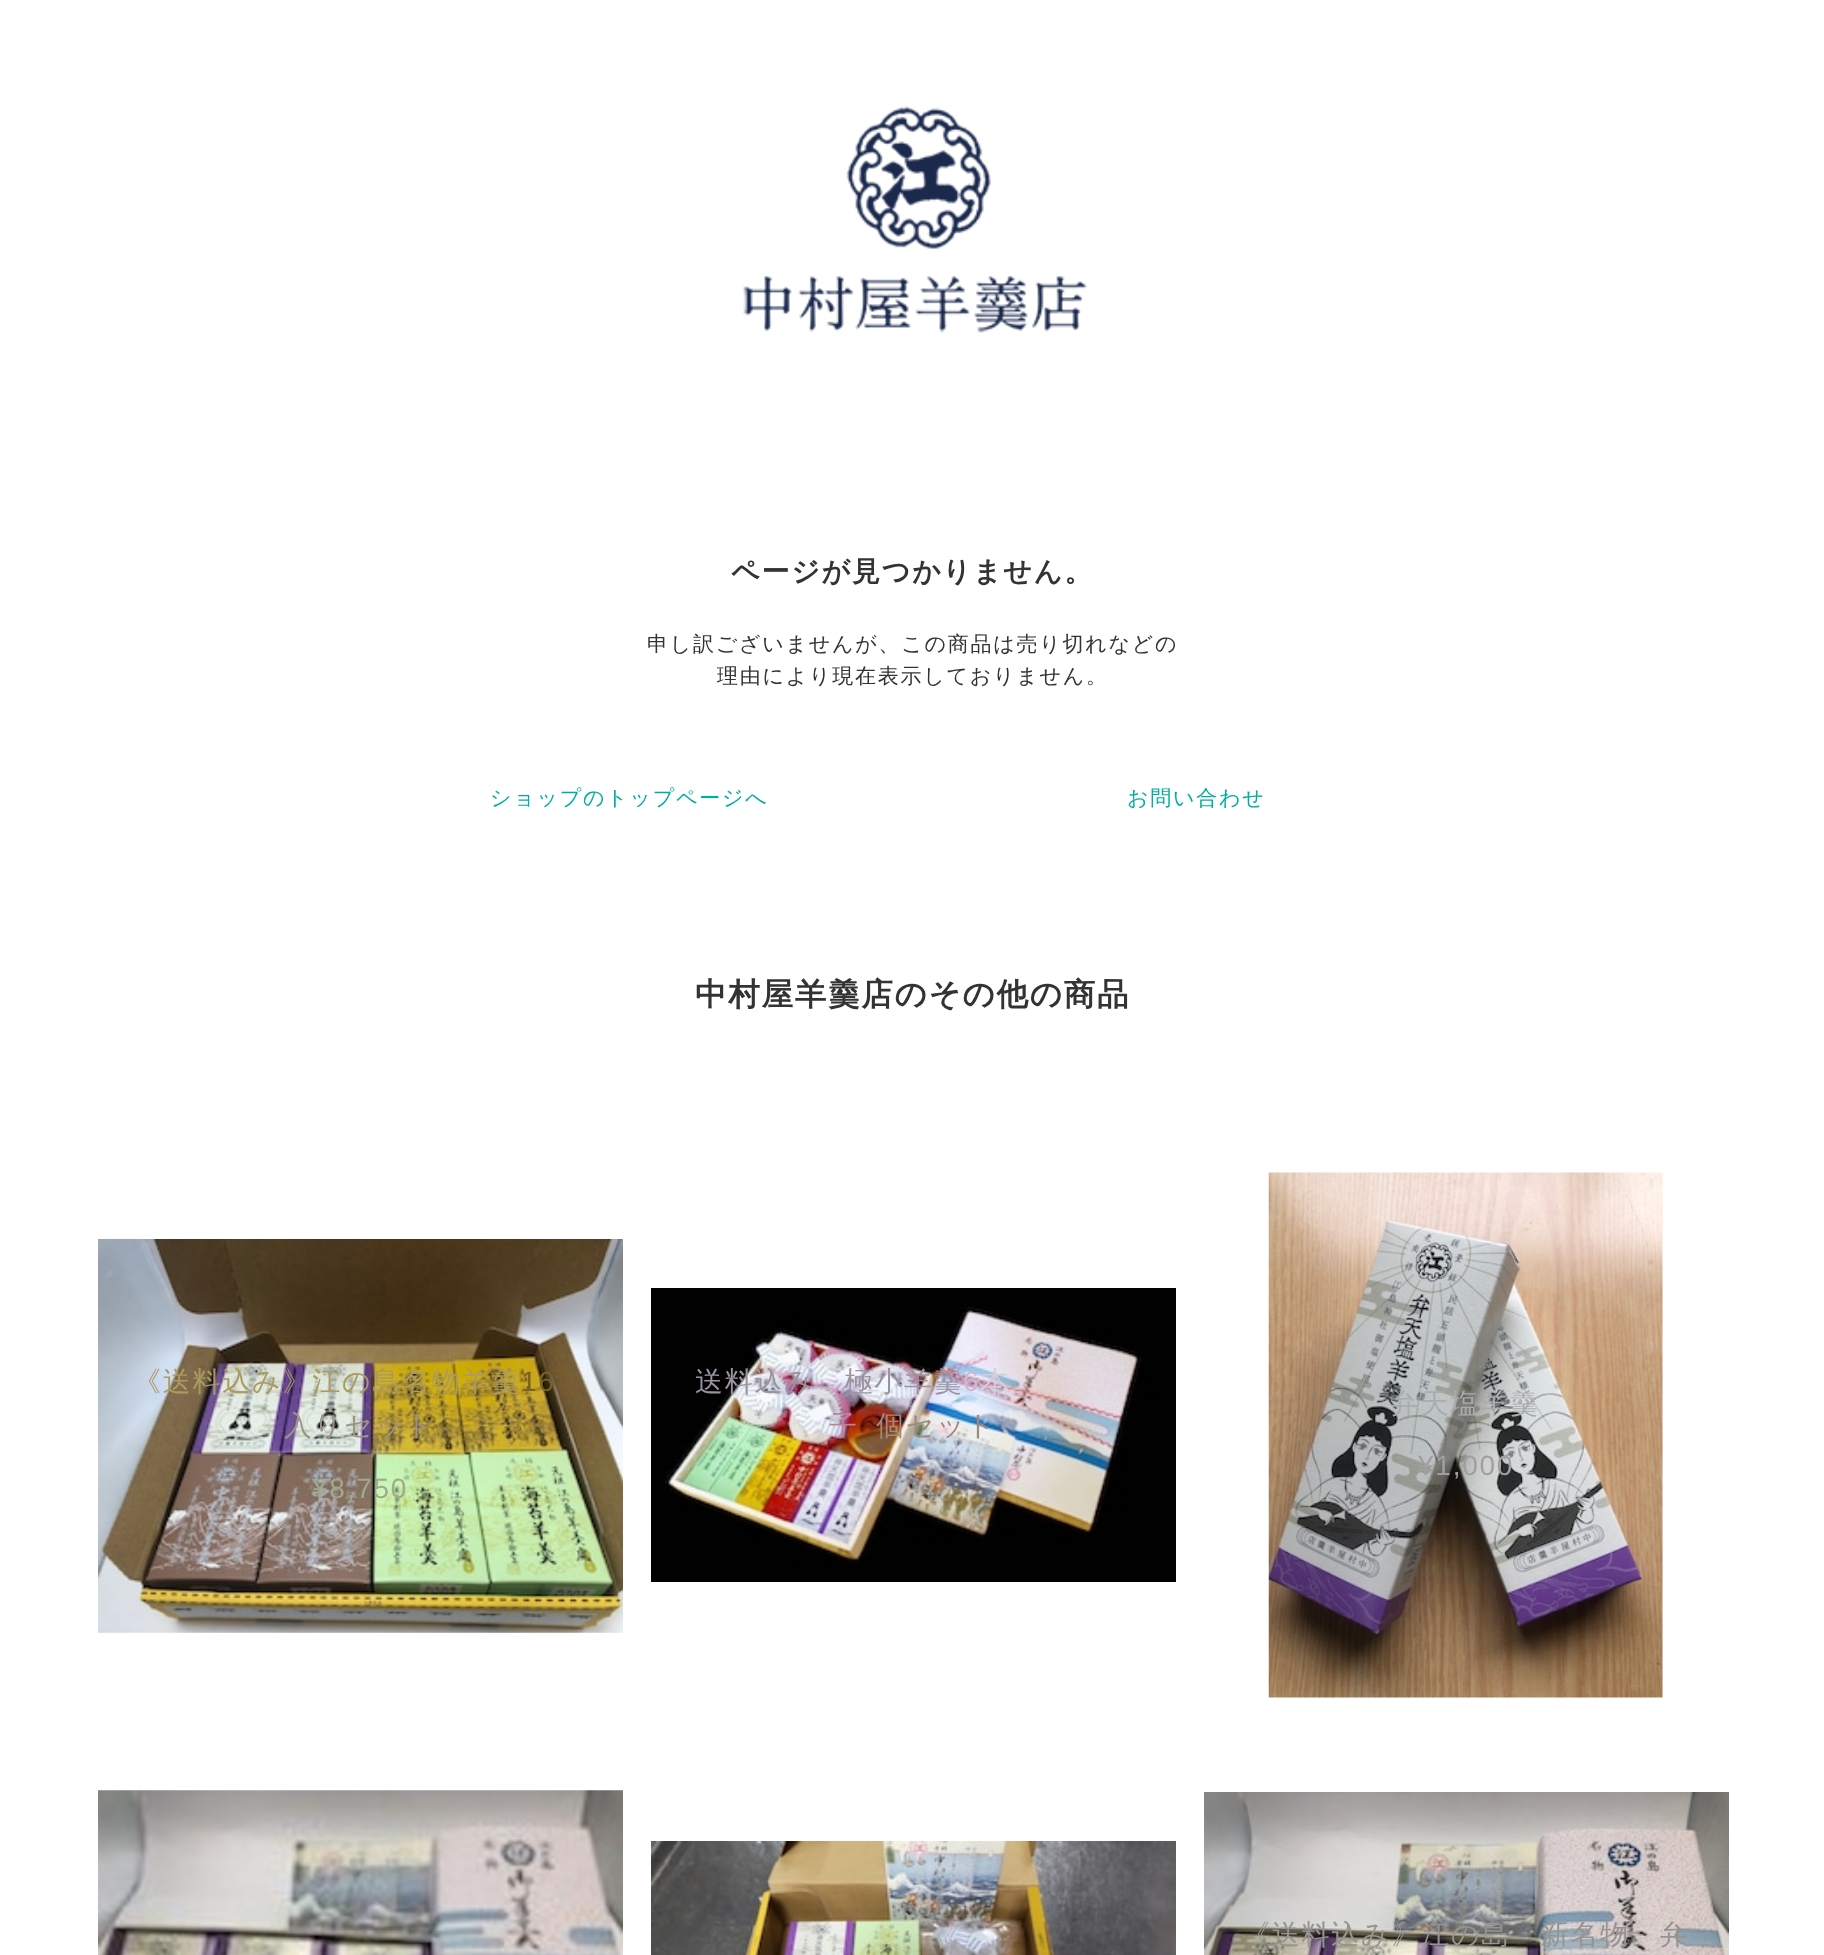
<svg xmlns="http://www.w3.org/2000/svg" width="1824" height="1955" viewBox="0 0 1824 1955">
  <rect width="100%" height="100%" fill="rgb(255,255,255)"/>
  <image x="743" y="106" width="344" height="227" href="pic1.png"/>
  <text x="731" y="581" font-family="WenQuanYi Zen Hei" font-size="28" font-weight="bold" letter-spacing="1.75" fill="rgb(51,51,51)">ページが見つかりません。</text>
  <g font-family="WenQuanYi Zen Hei" font-size="21" font-weight="500" letter-spacing="1.75" fill="rgb(51,51,51)">
    <text x="647" y="651">申し訳ございませんが、この商品は売り切れなどの</text>
    <text x="717" y="683">理由により現在表示しておりません。</text>
  </g>
  <g font-family="WenQuanYi Zen Hei" font-size="21" font-weight="500" letter-spacing="1.75" fill="rgb(0,174,159)">
    <text x="490" y="805">ショップのトップページへ</text>
    <text x="1127" y="805">お問い合わせ</text>
  </g>
  <text x="695" y="1005" font-family="WenQuanYi Zen Hei" font-size="31.5" font-weight="bold" letter-spacing="1.75" fill="rgb(51,51,51)">中村屋羊羹店のその他の商品</text>
  <image x="98" y="1239" width="525" height="394" href="pic2.png"/>
  <text x="133" y="1391" font-family="WenQuanYi Zen Hei" font-size="28" font-weight="500" letter-spacing="1.75" fill="rgb(171,155,96)">《送料込み》江の島名物羊羹</text>
  <text x="521" y="1391" font-family="Liberation Sans" font-size="28" letter-spacing="1.75" fill="rgb(120,98,30)">16</text>
  <text x="284" y="1435" font-family="WenQuanYi Zen Hei" font-size="28" font-weight="500" letter-spacing="1.75" fill="rgb(156,147,136)">入りセット</text>
  <text x="312" y="1498" font-family="Liberation Sans" font-size="28" letter-spacing="1.75" fill="rgb(161,169,139)">¥8,750</text>
  <image x="651" y="1288" width="525" height="294" href="pic3.png"/>
  <text x="695" y="1391" font-family="WenQuanYi Zen Hei" font-size="28" font-weight="500" letter-spacing="1.75" fill="rgb(155,147,159)">送料込み　極小羊羹</text>
  <text x="963" y="1391" font-family="Liberation Sans" font-size="28" letter-spacing="1.75" fill="rgb(205,185,209)">6</text>
  <text x="981" y="1391" font-family="WenQuanYi Zen Hei" font-size="28" font-weight="500" letter-spacing="1.75" fill="rgb(216,205,214)">本</text>
  <text x="829" y="1435" font-family="WenQuanYi Zen Hei" font-size="28" font-weight="500" letter-spacing="1.75" fill="rgb(186,133,155)">子</text>
  <text x="876" y="1435" font-family="WenQuanYi Zen Hei" font-size="28" font-weight="500" letter-spacing="1.75" fill="rgb(163,136,125)">個セット</text>
  <image x="1268" y="1172" width="395" height="526" href="pic4.png"/>
  <text x="1391" y="1413" font-family="WenQuanYi Zen Hei" font-size="28" font-weight="500" letter-spacing="1.75" fill="rgb(169,172,172)">弁天塩羊羹</text>
  <text x="1418" y="1475" font-family="Liberation Sans" font-size="28" letter-spacing="1.75" fill="rgb(159,160,159)">¥1,000</text>
  <image x="98" y="1790" width="525" height="165" href="pic5.png"/>
  <image x="651" y="1841" width="525" height="114" href="pic6.png"/>
  <image x="1204" y="1792" width="525" height="163" href="pic7.png"/>
  <text x="1242" y="1944" font-family="WenQuanYi Zen Hei" font-size="28" font-weight="500" letter-spacing="1.75" fill="rgb(150,148,145)">《送料込み》江の島　新名物　弁</text>
</svg>
